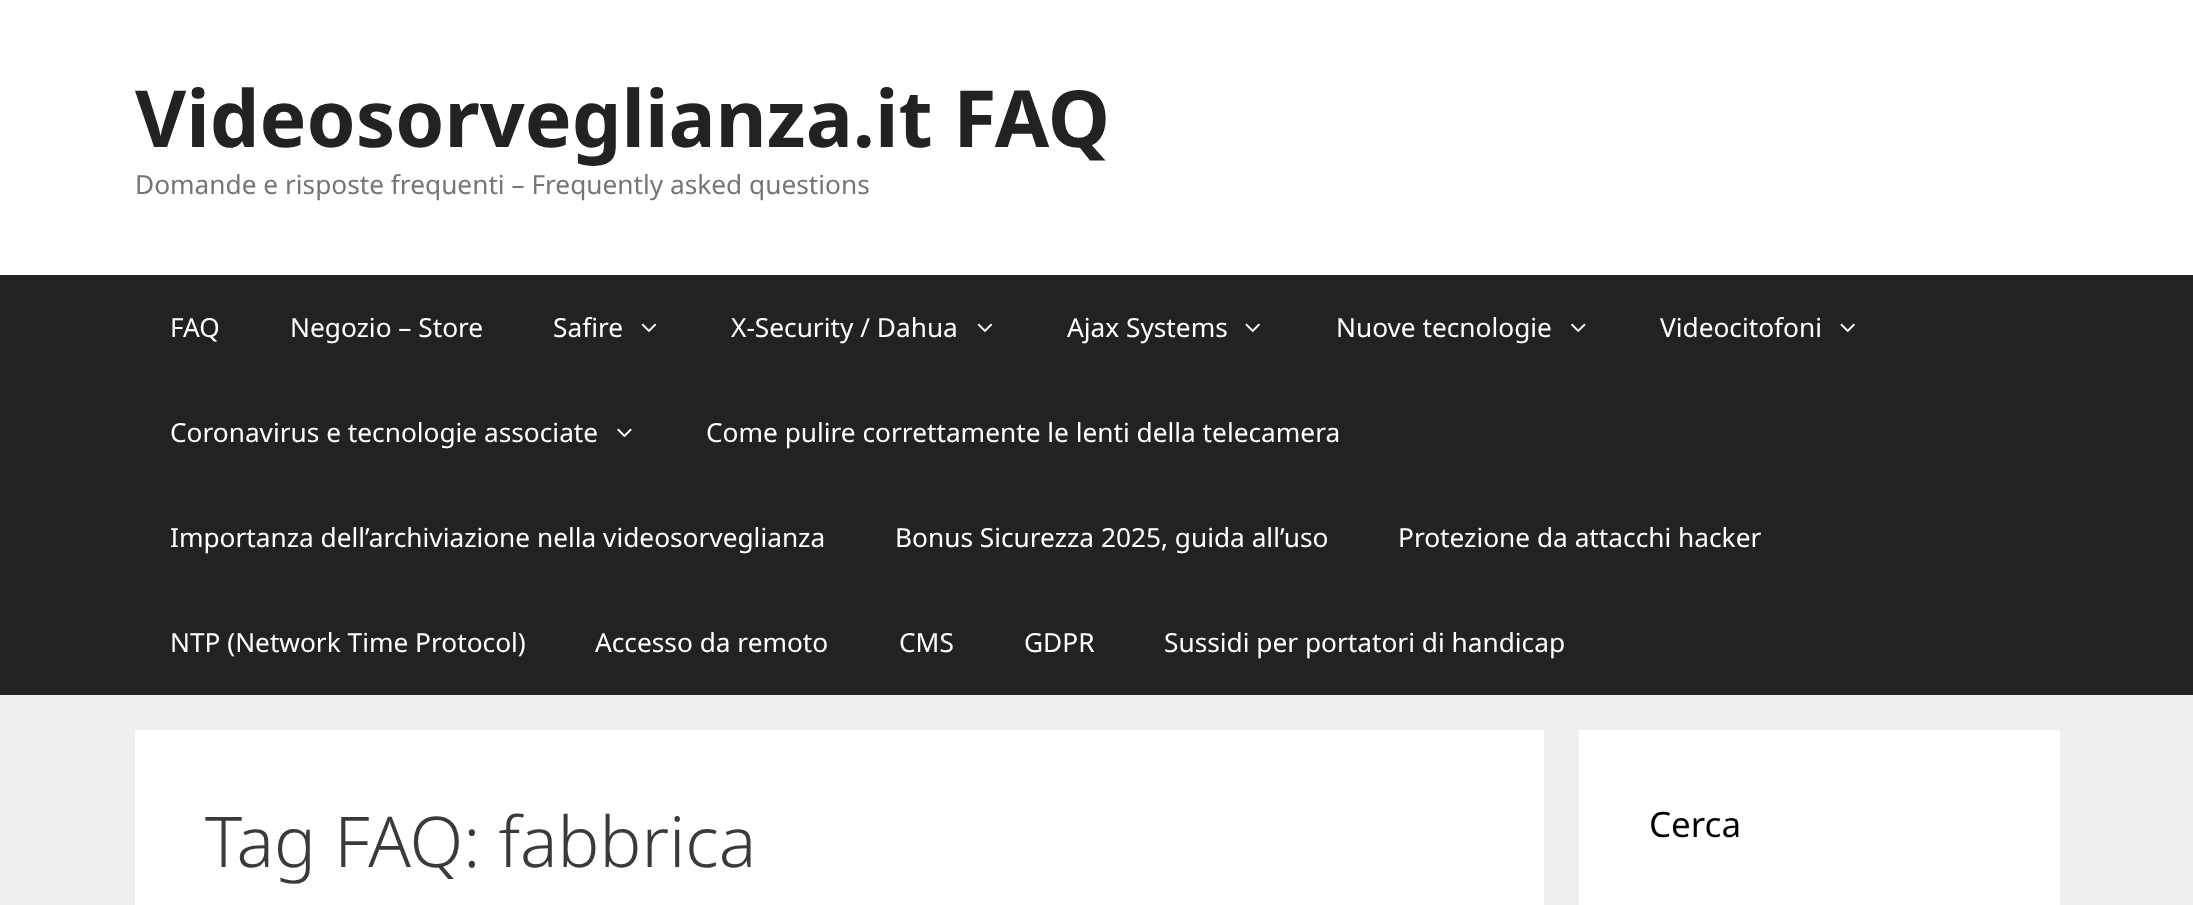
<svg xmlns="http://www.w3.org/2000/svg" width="2193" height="905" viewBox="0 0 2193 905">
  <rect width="100%" height="100%" fill="rgb(239,239,239)"/>
  <rect x="0" y="0" width="2193" height="275" fill="rgb(255,255,255)"/>
  <text x="135" y="147" font-family="Noto Sans" font-size="78.75" font-weight="bold" fill="rgb(34,34,34)">Videosorveglianza.it FAQ</text>
  <text x="135" y="194" font-family="Noto Sans" font-size="26.25" fill="rgb(117,117,117)">Domande e risposte frequenti – Frequently asked questions</text>
  <rect x="0" y="275" width="2193" height="420" fill="rgb(34,34,34)"/>
  <g font-family="Noto Sans" font-size="26.25" fill="rgb(255,255,255)">
    <text x="170" y="337">FAQ</text>
    <text x="290" y="337">Negozio – Store</text>
    <text x="553" y="337">Safire</text>
  </g>
  <image x="641" y="323" width="16" height="10" href="pic1.png"/>
  <text x="731" y="337" font-family="Noto Sans" font-size="26.25" fill="rgb(255,255,255)">X-Security / Dahua</text>
  <image x="977" y="323" width="16" height="10" href="pic1.png"/>
  <text x="1067" y="337" font-family="Noto Sans" font-size="26.25" fill="rgb(255,255,255)">Ajax Systems</text>
  <image x="1245" y="323" width="15" height="10" href="pic2.png"/>
  <text x="1336" y="337" font-family="Noto Sans" font-size="26.25" fill="rgb(255,255,255)">Nuove tecnologie</text>
  <image x="1571" y="323" width="15" height="10" href="pic3.png"/>
  <text x="1660" y="337" font-family="Noto Sans" font-size="26.25" fill="rgb(255,255,255)">Videocitofoni</text>
  <image x="1840" y="323" width="15" height="10" href="pic2.png"/>
  <text x="170" y="442" font-family="Noto Sans" font-size="26.25" fill="rgb(255,255,255)">Coronavirus e tecnologie associate</text>
  <image x="617" y="428" width="15" height="10" href="pic4.png"/>
  <g font-family="Noto Sans" font-size="26.25" fill="rgb(255,255,255)">
    <text x="706" y="442">Come pulire correttamente le lenti della telecamera</text>
    <text x="170" y="547">Importanza dell’archiviazione nella videosorveglianza</text>
    <text x="895" y="547">Bonus Sicurezza 2025, guida all’uso</text>
    <text x="1398" y="547">Protezione da attacchi hacker</text>
    <text x="170" y="652">NTP (Network Time Protocol)</text>
    <text x="595" y="652">Accesso da remoto</text>
    <text x="899" y="652">CMS</text>
    <text x="1024" y="652">GDPR</text>
    <text x="1164" y="652">Sussidi per portatori di handicap</text>
  </g>
  <rect x="135" y="730" width="1409" height="175" fill="rgb(255,255,255)"/>
  <text x="205" y="867" font-family="Noto Sans" font-size="70" font-weight="300" fill="rgb(58,58,58)">Tag FAQ: fabbrica</text>
  <rect x="1579" y="730" width="481" height="175" fill="rgb(255,255,255)"/>
  <text x="1649" y="837" font-family="Noto Sans" font-size="35" fill="rgb(0,0,0)">Cerca</text>
</svg>
